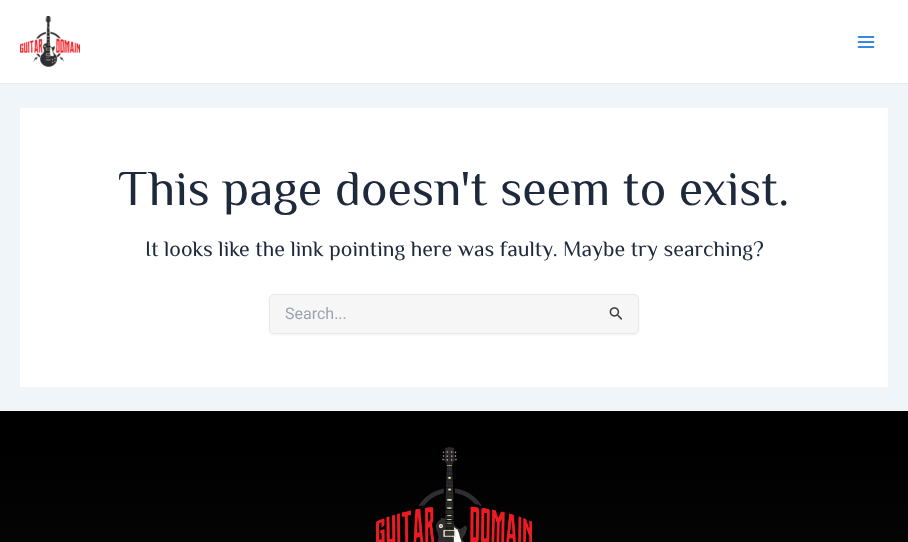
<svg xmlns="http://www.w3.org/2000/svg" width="908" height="542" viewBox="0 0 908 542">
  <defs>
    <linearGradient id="g1" gradientUnits="userSpaceOnUse" x1="454" y1="411" x2="454" y2="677"><stop offset="0.1" stop-color="rgb(0,0,0)"/><stop offset="1" stop-color="rgb(9,9,9)"/></linearGradient>
  </defs>
  <rect width="100%" height="100%" fill="rgb(240,245,250)"/>
  <rect x="0" y="0" width="908" height="83" fill="rgb(255,255,255)"/>
  <rect x="0" y="83" width="908" height="1" fill="rgb(234,234,234)"/>
  <image x="20" y="16" width="60" height="51" href="pic1.png"/>
  <image x="857" y="36" width="18" height="12" href="pic2.png"/>
  <rect x="20" y="108" width="868" height="279" fill="rgb(255,255,255)"/>
  <text x="118" y="205" font-family="ZCOOL XiaoWei" font-size="50" fill="rgb(30,41,59)">This page doesn't seem to exist.</text>
  <text x="145" y="256" font-family="ZCOOL XiaoWei" font-size="21.9" fill="rgb(30,41,59)">It looks like the link pointing here was faulty. Maybe try searching?</text>
  <rect x="269" y="295" width="370" height="40" rx="5" fill="rgba(0,0,0,0.05)" filter="blur(1px)"/>
  <rect x="269.5" y="294.5" width="369" height="39" rx="4.5" fill="rgb(246,246,246)" stroke="rgb(233,233,233)"/>
  <text x="285" y="319" font-family="Roboto" font-size="16" fill="rgb(156,163,175)">Search...</text>
  <image x="609" y="307" width="13" height="13" href="pic3.png"/>
  <rect x="0" y="411" width="908" height="131" fill="url(#g1)"/>
  <image x="376" y="447" width="156" height="95" href="pic4.png"/>
</svg>
